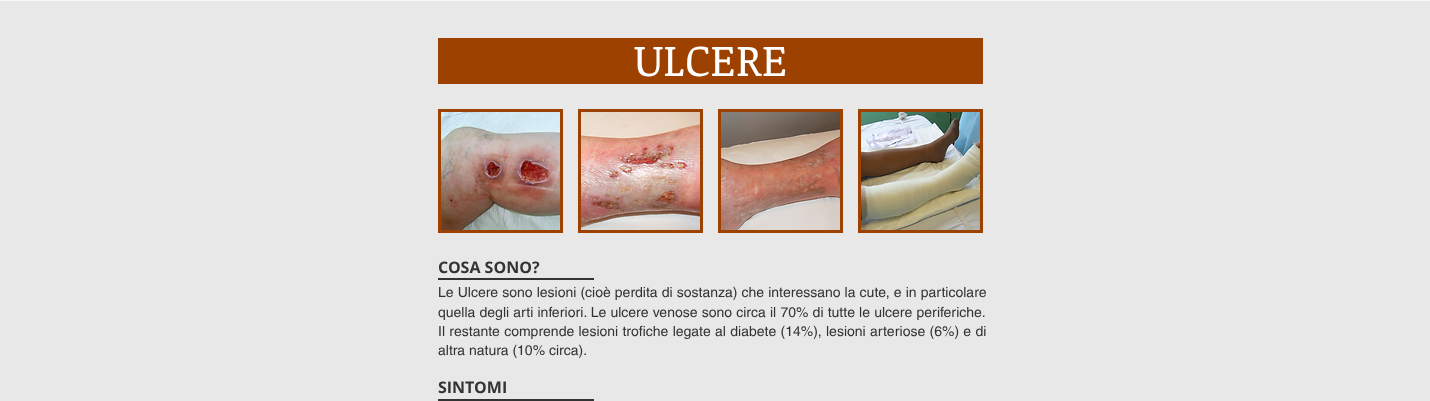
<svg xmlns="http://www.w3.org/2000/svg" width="1430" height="401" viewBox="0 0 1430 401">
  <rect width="100%" height="100%" fill="rgb(248,248,248)"/>
  <rect x="0" y="1" width="1430" height="400" fill="rgb(232,232,232)"/>
  <rect x="438" y="38" width="545" height="46" fill="rgb(156,65,0)"/>
  <text x="634" y="76" font-family="Noticia Text" font-size="44" fill="rgb(255,255,255)">ULCERE</text>
  <rect x="438" y="109" width="125" height="124" fill="rgb(156,65,0)"/>
  <image x="441" y="112" width="119" height="118" href="pic1.png"/>
  <rect x="578" y="109" width="125" height="124" fill="rgb(156,65,0)"/>
  <image x="581" y="112" width="119" height="118" href="pic2.png"/>
  <rect x="718" y="109" width="125" height="124" fill="rgb(156,65,0)"/>
  <image x="721" y="112" width="119" height="118" href="pic3.png"/>
  <rect x="858" y="109" width="125" height="124" fill="rgb(156,65,0)"/>
  <image x="861" y="112" width="119" height="118" href="pic4.png"/>
  <text x="438" y="273" font-family="Open Sans" font-size="16" font-weight="bold" fill="rgb(51,51,51)">COSA SONO?</text>
  <rect x="438" y="278" width="156" height="2" fill="rgb(51,51,51)"/>
  <g font-family="helvetica" font-size="14" fill="rgb(51,51,51)">
    <text>
      <tspan x="438" y="297" word-spacing="0.2">Le Ulcere sono lesioni (cioè perdita di sostanza) che interessano la cute, e in particolare</tspan>
      <tspan x="438" y="317" word-spacing="0.3">quella degli arti inferiori. Le ulcere venose sono circa il 70% di tutte le ulcere periferiche.</tspan>
      <tspan x="438" y="336" word-spacing="0.4">Il restante comprende lesioni trofiche legate al diabete (14%), lesioni arteriose (6%) e di</tspan>
      <tspan x="438" y="355">altra natura (10% circa).</tspan>
    </text>
  </g>
  <text x="438" y="393" font-family="Open Sans" font-size="16" font-weight="bold" fill="rgb(51,51,51)">SINTOMI</text>
  <rect x="438" y="399" width="156" height="2" fill="rgb(51,51,51)"/>
</svg>
